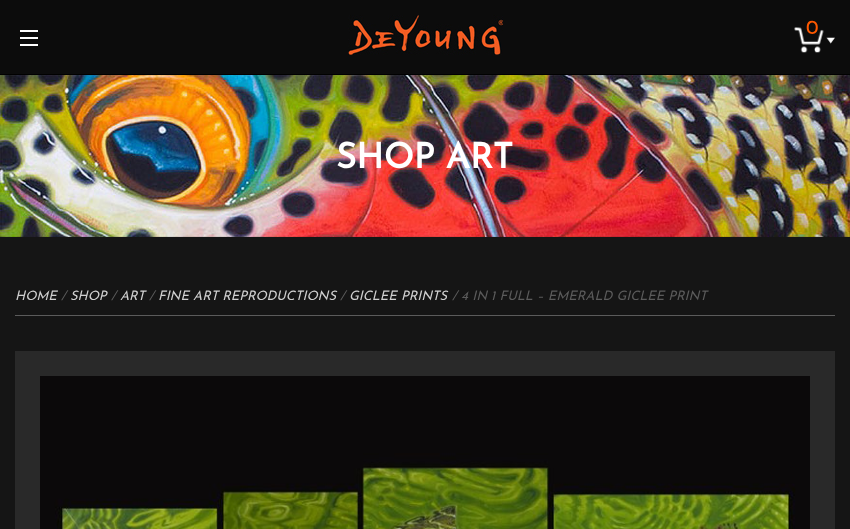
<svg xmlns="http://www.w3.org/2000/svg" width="850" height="529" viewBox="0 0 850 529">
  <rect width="100%" height="100%" fill="rgb(21,21,21)"/>
  <rect x="0" y="0" width="850" height="74" fill="rgb(12,12,12)"/>
  <rect x="20" y="44" width="18" height="2" fill="rgb(255,255,255)"/>
  <rect x="20" y="37" width="18" height="2" fill="rgb(255,255,255)"/>
  <rect x="20" y="30" width="18" height="2" fill="rgb(255,255,255)"/>
  <image x="348" y="15" width="155" height="40" href="pic1.png"/>
  <image x="794" y="27" width="41" height="26" href="pic2.png"/>
  <text x="806" y="34" font-family="Josefin Sans" font-size="20" font-weight="100" fill="rgb(255,89,0)">0</text>
  <rect x="0" y="74" width="850" height="1" fill="rgb(1,1,1)"/>
  <image x="0" y="75" width="850" height="162" href="pic3.png"/>
  <text x="336" y="168" font-family="Josefin Sans" font-size="35" font-weight="bold" fill="rgb(255,255,255)">SHOP ART</text>
  <rect x="15" y="315" width="820" height="1" fill="rgb(91,91,91)"/>
  <text x="15" y="300" font-family="Josefin Sans" font-size="13" font-weight="100" font-style="italic" fill="rgb(208,208,208)">HOME</text>
  <text x="61" y="300" font-family="Josefin Sans" font-size="13" font-weight="100" font-style="italic" fill="rgb(91,91,91)">/</text>
  <text x="70" y="300" font-family="Josefin Sans" font-size="13" font-weight="100" font-style="italic" fill="rgb(208,208,208)">SHOP</text>
  <text x="111" y="300" font-family="Josefin Sans" font-size="13" font-weight="100" font-style="italic" fill="rgb(91,91,91)">/</text>
  <text x="120" y="300" font-family="Josefin Sans" font-size="13" font-weight="100" font-style="italic" fill="rgb(208,208,208)">ART</text>
  <text x="149" y="300" font-family="Josefin Sans" font-size="13" font-weight="100" font-style="italic" fill="rgb(91,91,91)">/</text>
  <text x="158" y="300" font-family="Josefin Sans" font-size="13" font-weight="100" font-style="italic" fill="rgb(208,208,208)">FINE ART REPRODUCTIONS</text>
  <text x="340" y="300" font-family="Josefin Sans" font-size="13" font-weight="100" font-style="italic" fill="rgb(91,91,91)">/</text>
  <text x="349" y="300" font-family="Josefin Sans" font-size="13" font-weight="100" font-style="italic" fill="rgb(208,208,208)">GICLEE PRINTS</text>
  <text x="452" y="300" font-family="Josefin Sans" font-size="13" font-weight="100" font-style="italic" fill="rgb(91,91,91)">/ 4 IN 1 FULL – EMERALD GICLEE PRINT</text>
  <rect x="15" y="351" width="820" height="178" fill="rgb(41,41,41)"/>
  <image x="40" y="376" width="770" height="153" href="pic4.png"/>
</svg>
